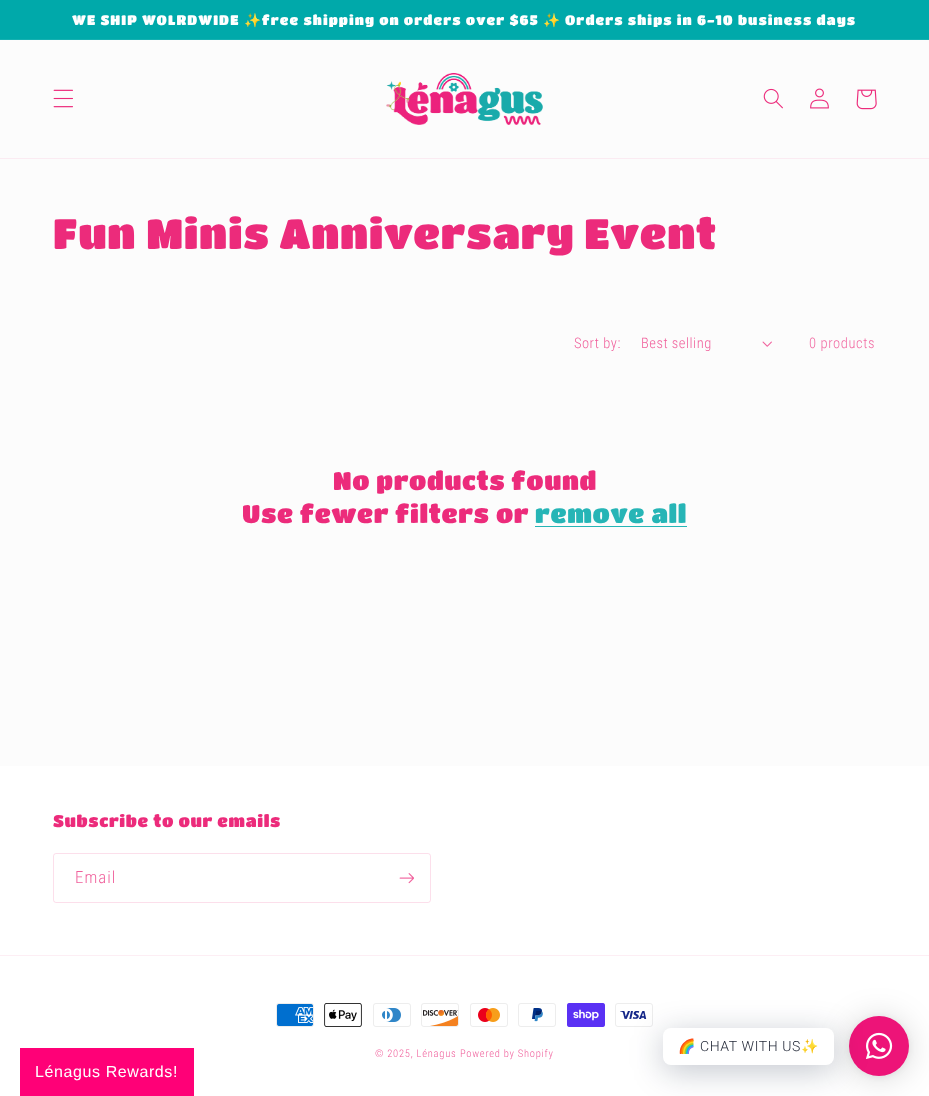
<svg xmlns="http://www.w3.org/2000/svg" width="929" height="1096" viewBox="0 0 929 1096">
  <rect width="100%" height="100%" fill="rgb(252,252,252)"/>
  <rect x="0" y="0" width="929" height="39" fill="rgb(0,169,170)"/>
  <rect x="0" y="39" width="929" height="1" fill="rgb(20,176,177)"/>
  <text x="72" y="25" font-family="Titan One" font-size="13.65" letter-spacing="1.05" fill="rgb(255,255,255)">WE SHIP WOLRDWIDE</text>
  <text x="244" y="25" font-family="Noto Color Emoji" font-size="13.65" letter-spacing="1.05" fill="rgb(255,255,255)">✨</text>
  <text x="262" y="25" font-family="Titan One" font-size="13.65" letter-spacing="1.05" fill="rgb(255,255,255)">free shipping on orders over $65</text>
  <text x="543" y="25" font-family="Noto Color Emoji" font-size="13.65" letter-spacing="1.05" fill="rgb(255,255,255)">✨</text>
  <text x="565" y="25" font-family="Titan One" font-size="13.65" letter-spacing="1.05" fill="rgb(255,255,255)">Orders ships in 6-10 business days</text>
  <rect x="0" y="158" width="929" height="1" fill="rgb(251,235,242)"/>
  <image x="53" y="89" width="20" height="19" href="pic1.png"/>
  <image x="386" y="73" width="157" height="52" href="pic2.png"/>
  <image x="763" y="88" width="20" height="21" href="pic3.png"/>
  <image x="810" y="88" width="19" height="21" href="pic4.png"/>
  <image x="856" y="89" width="21" height="21" href="pic5.png"/>
  <text x="53" y="249" font-family="Titan One" font-size="42" letter-spacing="0.6" fill="rgb(236,43,123)">Fun Minis Anniversary Event</text>
  <g font-family="Roboto Condensed" font-size="14.5" font-weight="300" letter-spacing="0.5" fill="rgb(240,95,155)">
    <text x="574" y="348">Sort by:</text>
    <text x="641" y="348">Best selling</text>
  </g>
  <image x="762" y="341" width="10" height="6" href="pic6.png"/>
  <text x="809" y="348" font-family="Roboto Condensed" font-size="14.5" font-weight="300" letter-spacing="0.6" fill="rgb(241,106,162)">0 products</text>
  <g font-family="Titan One" font-size="25.25" letter-spacing="0.6" fill="rgb(236,43,123)">
    <text x="333" y="490">No products found</text>
    <text x="242" y="523">Use fewer filters or</text>
  </g>
  <text x="535" y="523" font-family="Titan One" font-size="25.25" letter-spacing="0.6" fill="rgb(38,181,182)">remove all</text>
  <rect x="535" y="526" width="152" height="1" fill="rgb(38,181,182)"/>
  <rect x="0" y="766" width="929" height="330" fill="rgb(255,255,255)"/>
  <text x="53" y="827" font-family="Titan One" font-size="16.75" letter-spacing="0.6" fill="rgb(236,43,123)">Subscribe to our emails</text>
  <rect x="53.5" y="853.5" width="377" height="49" rx="2.5" fill="none" stroke="rgba(236,43,123,0.15)"/>
  <text x="75" y="883" font-family="Roboto Condensed" font-size="16.75" font-weight="300" letter-spacing="1.05" fill="rgb(240,95,155)">Email</text>
  <image x="399" y="873" width="15" height="11" href="pic7.png"/>
  <rect x="0" y="955" width="929" height="1" fill="rgb(253,238,244)"/>
  <image x="276" y="1003" width="38" height="24" href="pic8.png"/>
  <image x="324" y="1003" width="38" height="24" href="pic9.png"/>
  <image x="373" y="1003" width="38" height="24" href="pic10.png"/>
  <image x="421" y="1003" width="38" height="24" href="pic11.png"/>
  <image x="470" y="1003" width="38" height="24" href="pic12.png"/>
  <image x="518" y="1003" width="38" height="24" href="pic13.png"/>
  <image x="567" y="1003" width="38" height="24" href="pic14.png"/>
  <image x="615" y="1003" width="38" height="24" href="pic15.png"/>
  <g font-family="Roboto Condensed" font-size="10.5" font-weight="300" letter-spacing="0.75" fill="rgb(240,95,155)">
    <text x="375" y="1057">© 2025, Lénagus</text>
    <text x="460" y="1057">Powered by Shopify</text>
  </g>
  <rect x="849" y="1018" width="60" height="60" rx="30" fill="rgba(0,0,0,0.16)" filter="blur(16px)"/>
  <rect x="849" y="1017" width="60" height="60" rx="30" fill="rgba(0,0,0,0.06)" filter="blur(3px)"/>
  <circle cx="879" cy="1046" r="30" fill="rgb(237,20,120)"/>
  <rect x="663" y="1034" width="171" height="37" rx="8" fill="rgba(0,18,46,0.24)" filter="blur(16px)"/>
  <rect x="663" y="1028" width="171" height="37" rx="8" fill="rgb(255,255,255)"/>
  <text x="678" y="1051" font-family="Noto Color Emoji" font-size="14" letter-spacing="0.6" fill="rgb(30,36,51)">🌈</text>
  <text x="700" y="1051" font-family="Roboto" font-size="14" font-weight="300" letter-spacing="0.6" fill="rgb(30,36,51)">CHAT WITH US</text>
  <text x="801" y="1051" font-family="Noto Color Emoji" font-size="14" letter-spacing="0.6" fill="rgb(30,36,51)">✨</text>
  <image x="866" y="1032" width="27" height="27" href="pic16.png"/>
  <rect x="20" y="1048" width="174" height="48" fill="rgb(255,0,119)"/>
  <text x="35" y="1077" font-family="Liberation Sans" font-size="16" letter-spacing="0.6" fill="rgb(255,255,255)">Lénagus Rewards!</text>
</svg>
